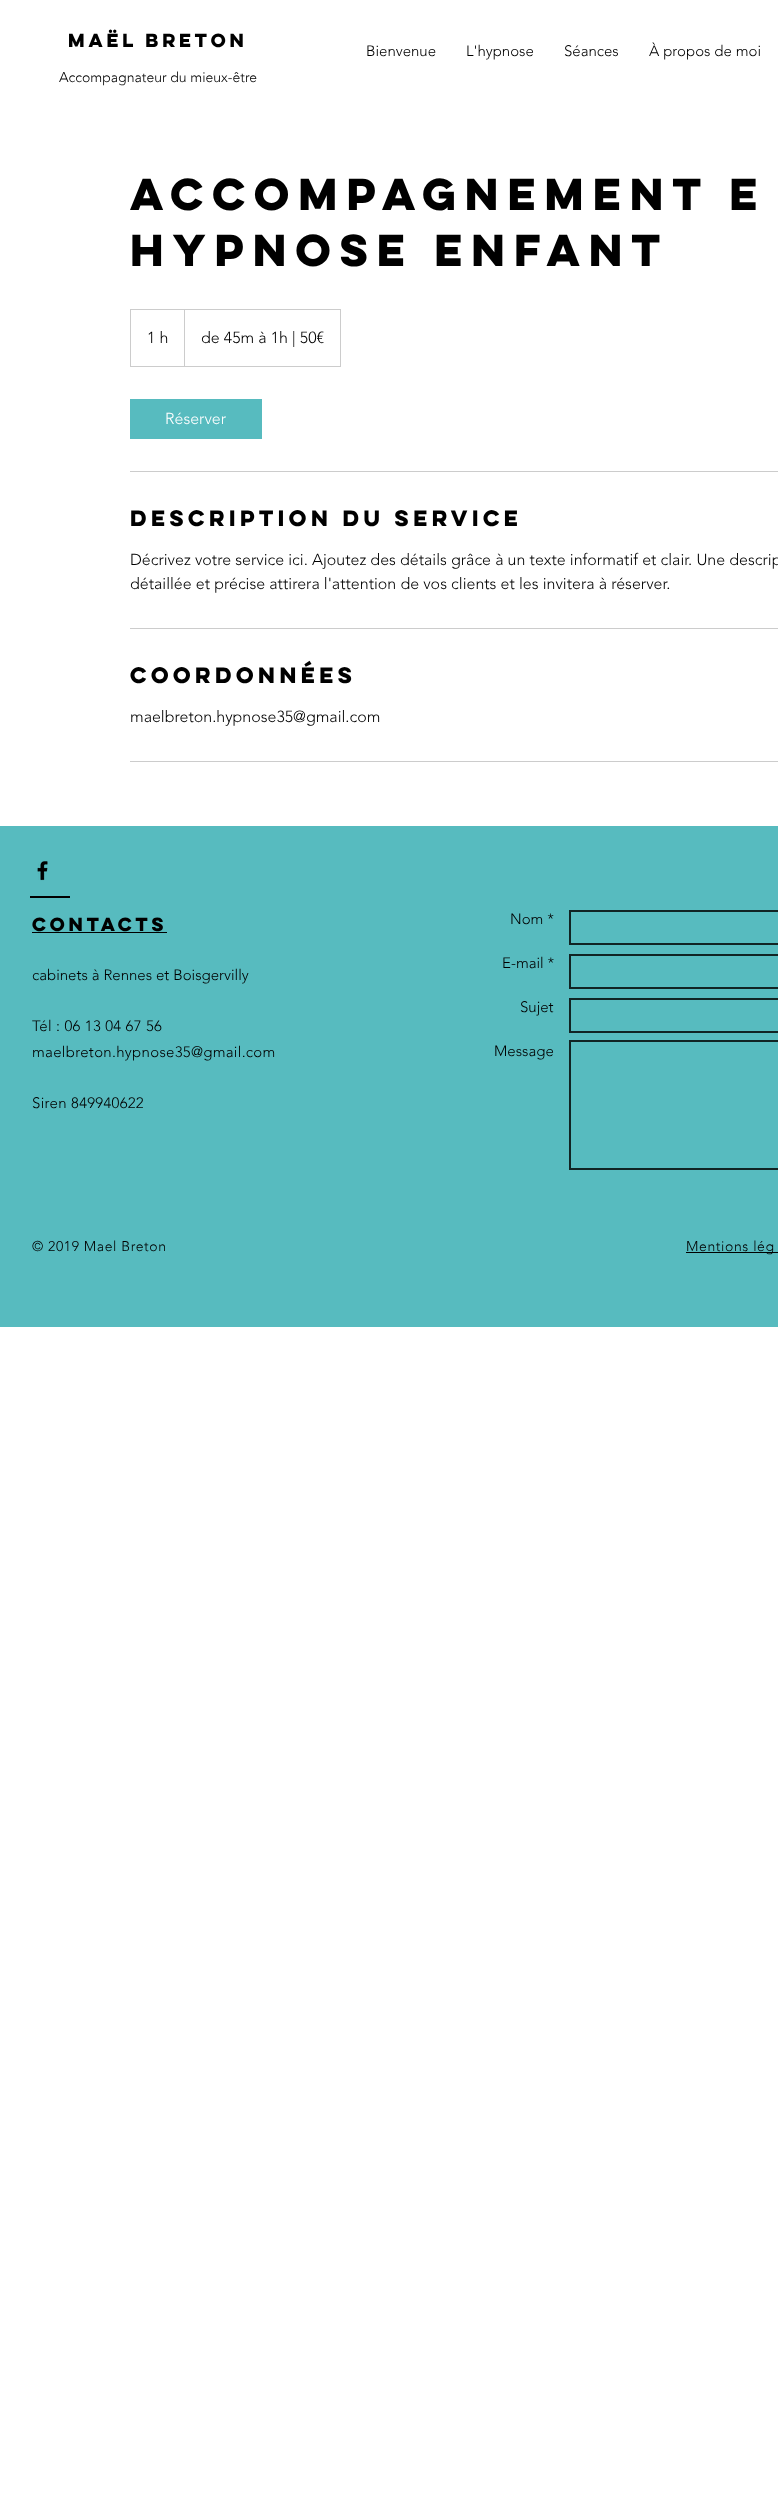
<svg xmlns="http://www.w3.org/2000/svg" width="778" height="2520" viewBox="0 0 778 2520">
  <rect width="100%" height="100%" fill="rgb(255,255,255)"/>
  <text x="68" y="47" font-family="'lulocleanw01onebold'" font-size="17" font-weight="bold" fill="rgb(0,0,0)">Maël BRETON</text>
  <g font-family="'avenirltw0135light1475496'" font-size="15" font-weight="300" fill="rgb(0,0,0)">
    <text x="366" y="56">Bienvenue</text>
    <text x="466" y="56">L'hypnose</text>
    <text x="564" y="56">Séances</text>
    <text x="649" y="56">À propos de moi</text>
  </g>
  <text x="59" y="82" font-family="'avenirltw0135light1475496'" font-size="14" font-weight="300" fill="rgb(0,0,0)">Accompagnateur du mieux-être</text>
  <g font-family="'lulocleanw01onebold'" font-size="40" font-weight="bold" fill="rgb(0,0,0)">
    <text>
      <tspan x="130" y="210">Accompagnement e</tspan>
      <tspan x="130" y="266">hypnose enfant</tspan>
    </text>
  </g>
  <rect x="130.5" y="309.5" width="210" height="57" fill="none" stroke="rgb(204,204,204)"/>
  <text x="147" y="343" font-family="'avenirltw0135light1475496'" font-size="16" font-weight="300" fill="rgb(0,0,0)">1 h</text>
  <path d="M184 366V309L185 310V366Z" fill="rgb(204,204,204)"/>
  <text x="201" y="343" font-family="'avenirltw0135light1475496'" font-size="16" font-weight="300" fill="rgb(0,0,0)">de 45m à 1h | 50€</text>
  <rect x="130" y="399" width="132" height="40" fill="rgb(87,187,191)"/>
  <text x="165" y="424" font-family="'avenirltw0135light1475496'" font-size="16" font-weight="300" fill="rgb(255,255,255)">Réserver</text>
  <rect x="130" y="471" width="648" height="1" fill="rgb(204,204,204)"/>
  <text x="130" y="526" font-family="'lulocleanw01onebold'" font-size="20" font-weight="bold" fill="rgb(0,0,0)">Description du service</text>
  <g font-family="'avenirltw0135light1475496'" font-size="16" font-weight="300" fill="rgb(0,0,0)">
    <text>
      <tspan x="130" y="565">Décrivez votre service ici. Ajoutez des détails grâce à un texte informatif et clair. Une descrip</tspan>
      <tspan x="130" y="589">détaillée et précise attirera l'attention de vos clients et les invitera à réserver.</tspan>
    </text>
  </g>
  <rect x="130" y="628" width="648" height="1" fill="rgb(204,204,204)"/>
  <text x="130" y="683" font-family="'lulocleanw01onebold'" font-size="20" font-weight="bold" fill="rgb(0,0,0)">Coordonnées</text>
  <text x="130" y="722" font-family="'avenirltw0135light1475496'" font-size="16" font-weight="300" fill="rgb(0,0,0)">maelbreton.hypnose35@gmail.com</text>
  <rect x="130" y="761" width="648" height="1" fill="rgb(204,204,204)"/>
  <rect x="0" y="826" width="778" height="501" fill="rgb(87,187,191)"/>
  <image x="37" y="861" width="11" height="20" href="pic1.png"/>
  <rect x="30" y="896" width="40" height="2" fill="rgb(0,0,0)"/>
  <text x="32" y="931" font-family="'lulocleanw01onebold'" font-size="17" font-weight="bold" fill="rgb(0,0,0)">Contacts</text>
  <rect x="32" y="932" width="135" height="1" fill="rgb(0,0,0)"/>
  <text x="510" y="924" font-family="'avenirltw0135light1475496'" font-size="15" font-weight="300" fill="rgb(0,0,0)">Nom *</text>
  <rect x="570" y="911" width="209" height="33" fill="none" stroke="rgb(17,36,36)" stroke-width="2"/>
  <text x="502" y="968" font-family="'avenirltw0135light1475496'" font-size="15" font-weight="300" fill="rgb(0,0,0)">E-mail *</text>
  <rect x="570" y="955" width="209" height="33" fill="none" stroke="rgb(17,36,36)" stroke-width="2"/>
  <text x="520" y="1012" font-family="'avenirltw0135light1475496'" font-size="15" font-weight="300" fill="rgb(0,0,0)">Sujet</text>
  <rect x="570" y="999" width="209" height="33" fill="none" stroke="rgb(17,36,36)" stroke-width="2"/>
  <text x="494" y="1056" font-family="'avenirltw0135light1475496'" font-size="15" font-weight="300" fill="rgb(0,0,0)">Message</text>
  <rect x="570" y="1041" width="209" height="128" fill="none" stroke="rgb(17,36,36)" stroke-width="2"/>
  <text x="32" y="980" font-family="'avenirltw0135light1475496'" font-size="15" font-weight="300" fill="rgb(0,0,0)">cabinets à Rennes et Boisgervilly</text>
  <g font-family="'avenirltw0135light1475496'" font-size="15" font-weight="300" letter-spacing="0.3" fill="rgb(0,0,0)">
    <text>
      <tspan x="32" y="1031">Tél : 06 13 04 67 56</tspan>
      <tspan x="32" y="1057">maelbreton.hypnose35@gmail.com</tspan>
    </text>
    <text x="32" y="1108">Siren 849940622</text>
  </g>
  <text x="32" y="1251" font-family="'avenirltw0135light1475496'" font-size="14" font-weight="300" letter-spacing="0.6" fill="rgb(0,0,0)">© 2019 Mael Breton</text>
  <rect x="686" y="1252" width="92" height="1" fill="rgb(0,0,0)"/>
  <text x="686" y="1251" font-family="'avenirltw0135light1475496'" font-size="14" font-weight="300" letter-spacing="0.6" fill="rgb(0,0,0)">Mentions lég</text>
</svg>
